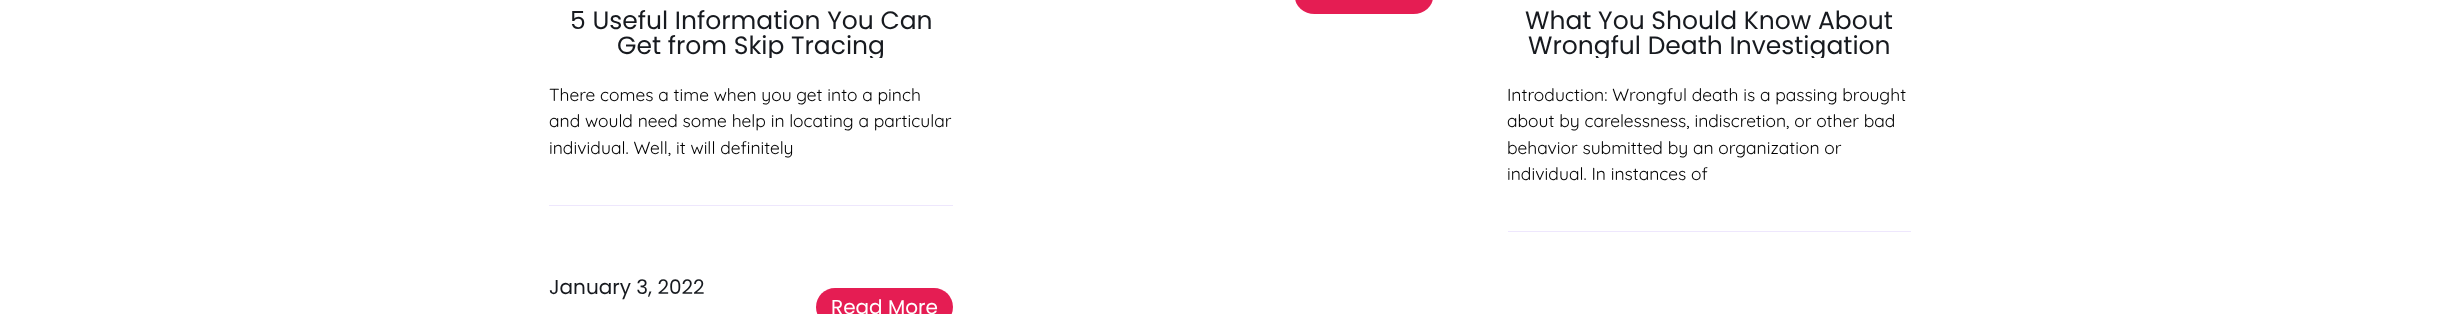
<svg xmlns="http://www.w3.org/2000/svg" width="2460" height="314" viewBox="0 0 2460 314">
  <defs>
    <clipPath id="clip1"><rect x="549" y="8" width="404" height="50"/></clipPath>
    <clipPath id="clip2"><rect x="1508" y="8" width="403" height="50"/></clipPath>
  </defs>
  <rect width="100%" height="100%" fill="rgb(255,255,255)"/>
  <rect x="1295" y="-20" width="138" height="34" rx="19.5" fill="rgb(229,29,83)"/>
  <text x="570" y="29" font-family="Poppins" font-size="25" fill="rgb(23,26,31)">5 Useful Information You Can</text>
  <g clip-path="url(#clip1)">
    <text x="617" y="54" font-family="Poppins" font-size="25" fill="rgb(23,26,31)">Get from Skip Tracing</text>
  </g>
  <g font-family="Quicksand" font-size="17.5" fill="rgb(0,0,0)">
    <text>
      <tspan x="549" y="101">There comes a time when you get into a pinch</tspan>
      <tspan x="549" y="127">and would need some help in locating a particular</tspan>
      <tspan x="549" y="154">individual. Well, it will definitely</tspan>
    </text>
  </g>
  <rect x="549" y="205" width="404" height="1" fill="rgb(238,231,253)"/>
  <text x="549" y="294" font-family="Poppins" font-size="20" fill="rgb(23,26,31)">January 3, 2022</text>
  <rect x="816" y="288" width="137" height="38" rx="19" fill="rgb(229,29,83)"/>
  <text x="831" y="314" font-family="Poppins" font-size="20" fill="rgb(255,255,255)">Read More</text>
  <text x="1525" y="29" font-family="Poppins" font-size="25" fill="rgb(23,26,31)">What You Should Know About</text>
  <g clip-path="url(#clip2)">
    <text x="1528" y="54" font-family="Poppins" font-size="25" fill="rgb(23,26,31)">Wrongful Death Investigation</text>
  </g>
  <g font-family="Quicksand" font-size="17.5" fill="rgb(0,0,0)">
    <text>
      <tspan x="1507" y="101">Introduction: Wrongful death is a passing brought</tspan>
      <tspan x="1507" y="127">about by carelessness, indiscretion, or other bad</tspan>
      <tspan x="1507" y="154">behavior submitted by an organization or</tspan>
      <tspan x="1507" y="180">individual. In instances of</tspan>
    </text>
  </g>
  <rect x="1508" y="231" width="403" height="1" fill="rgb(238,231,253)"/>
</svg>
